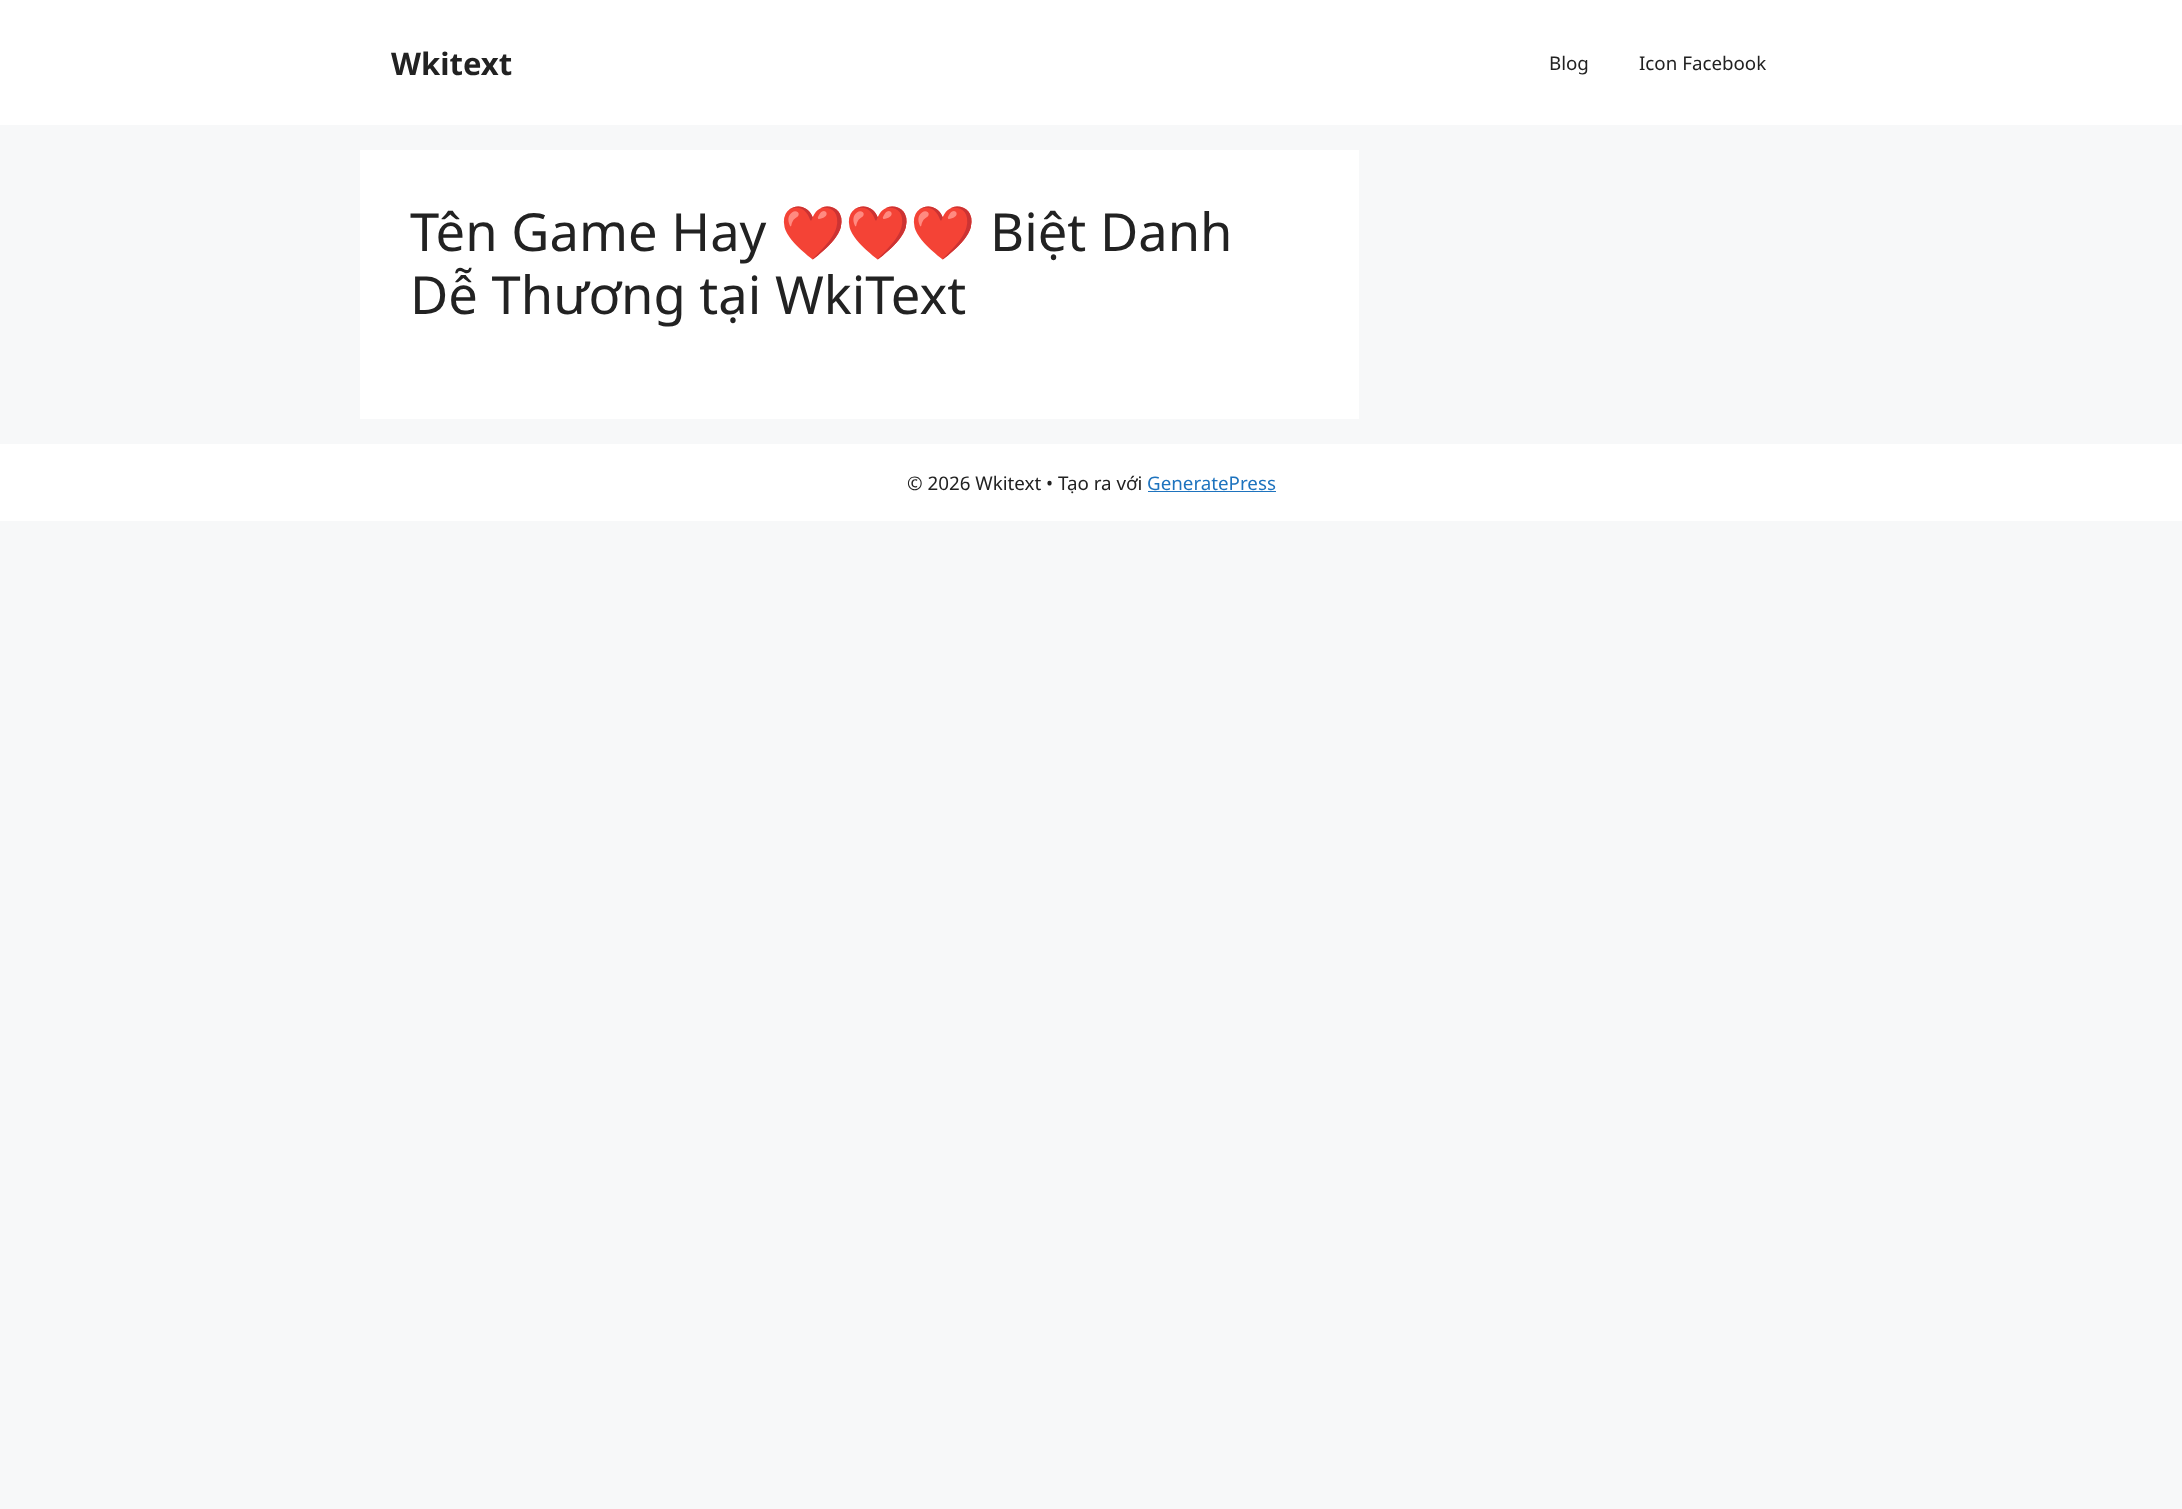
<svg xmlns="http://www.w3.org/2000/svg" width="2182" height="1509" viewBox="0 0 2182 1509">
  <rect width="100%" height="100%" fill="rgb(247,248,249)"/>
  <rect x="0" y="0" width="2182" height="125" fill="rgb(255,255,255)"/>
  <text x="391" y="75" font-family="Noto Sans" font-size="31" font-weight="bold" fill="rgb(34,34,34)">Wkitext</text>
  <g font-family="Noto Sans" font-size="18.75" fill="rgb(34,34,34)">
    <text x="1549" y="70">Blog</text>
    <text x="1639" y="70">Icon Facebook</text>
  </g>
  <rect x="360" y="150" width="999" height="269" fill="rgb(255,255,255)"/>
  <text x="410" y="251" font-family="Noto Sans" font-size="52.5" fill="rgb(34,34,34)">Tên Game Hay</text>
  <text x="780" y="251" font-family="Noto Color Emoji" font-size="52.5" fill="rgb(34,34,34)">❤️❤️❤️</text>
  <g font-family="Noto Sans" font-size="52.5" fill="rgb(34,34,34)">
    <text x="990" y="251">Biệt Danh</text>
    <text x="410" y="314">Dễ Thương tại WkiText</text>
  </g>
  <rect x="0" y="444" width="2182" height="77" fill="rgb(255,255,255)"/>
  <text x="907" y="490" font-family="Noto Sans" font-size="18.75" fill="rgb(34,34,34)">© 2026 Wkitext • Tạo ra với</text>
  <text x="1147" y="490" font-family="Noto Sans" font-size="18.75" fill="rgb(30,115,190)">GeneratePress</text>
  <rect x="1148" y="491" width="128" height="1" fill="rgb(30,115,190)"/>
</svg>
